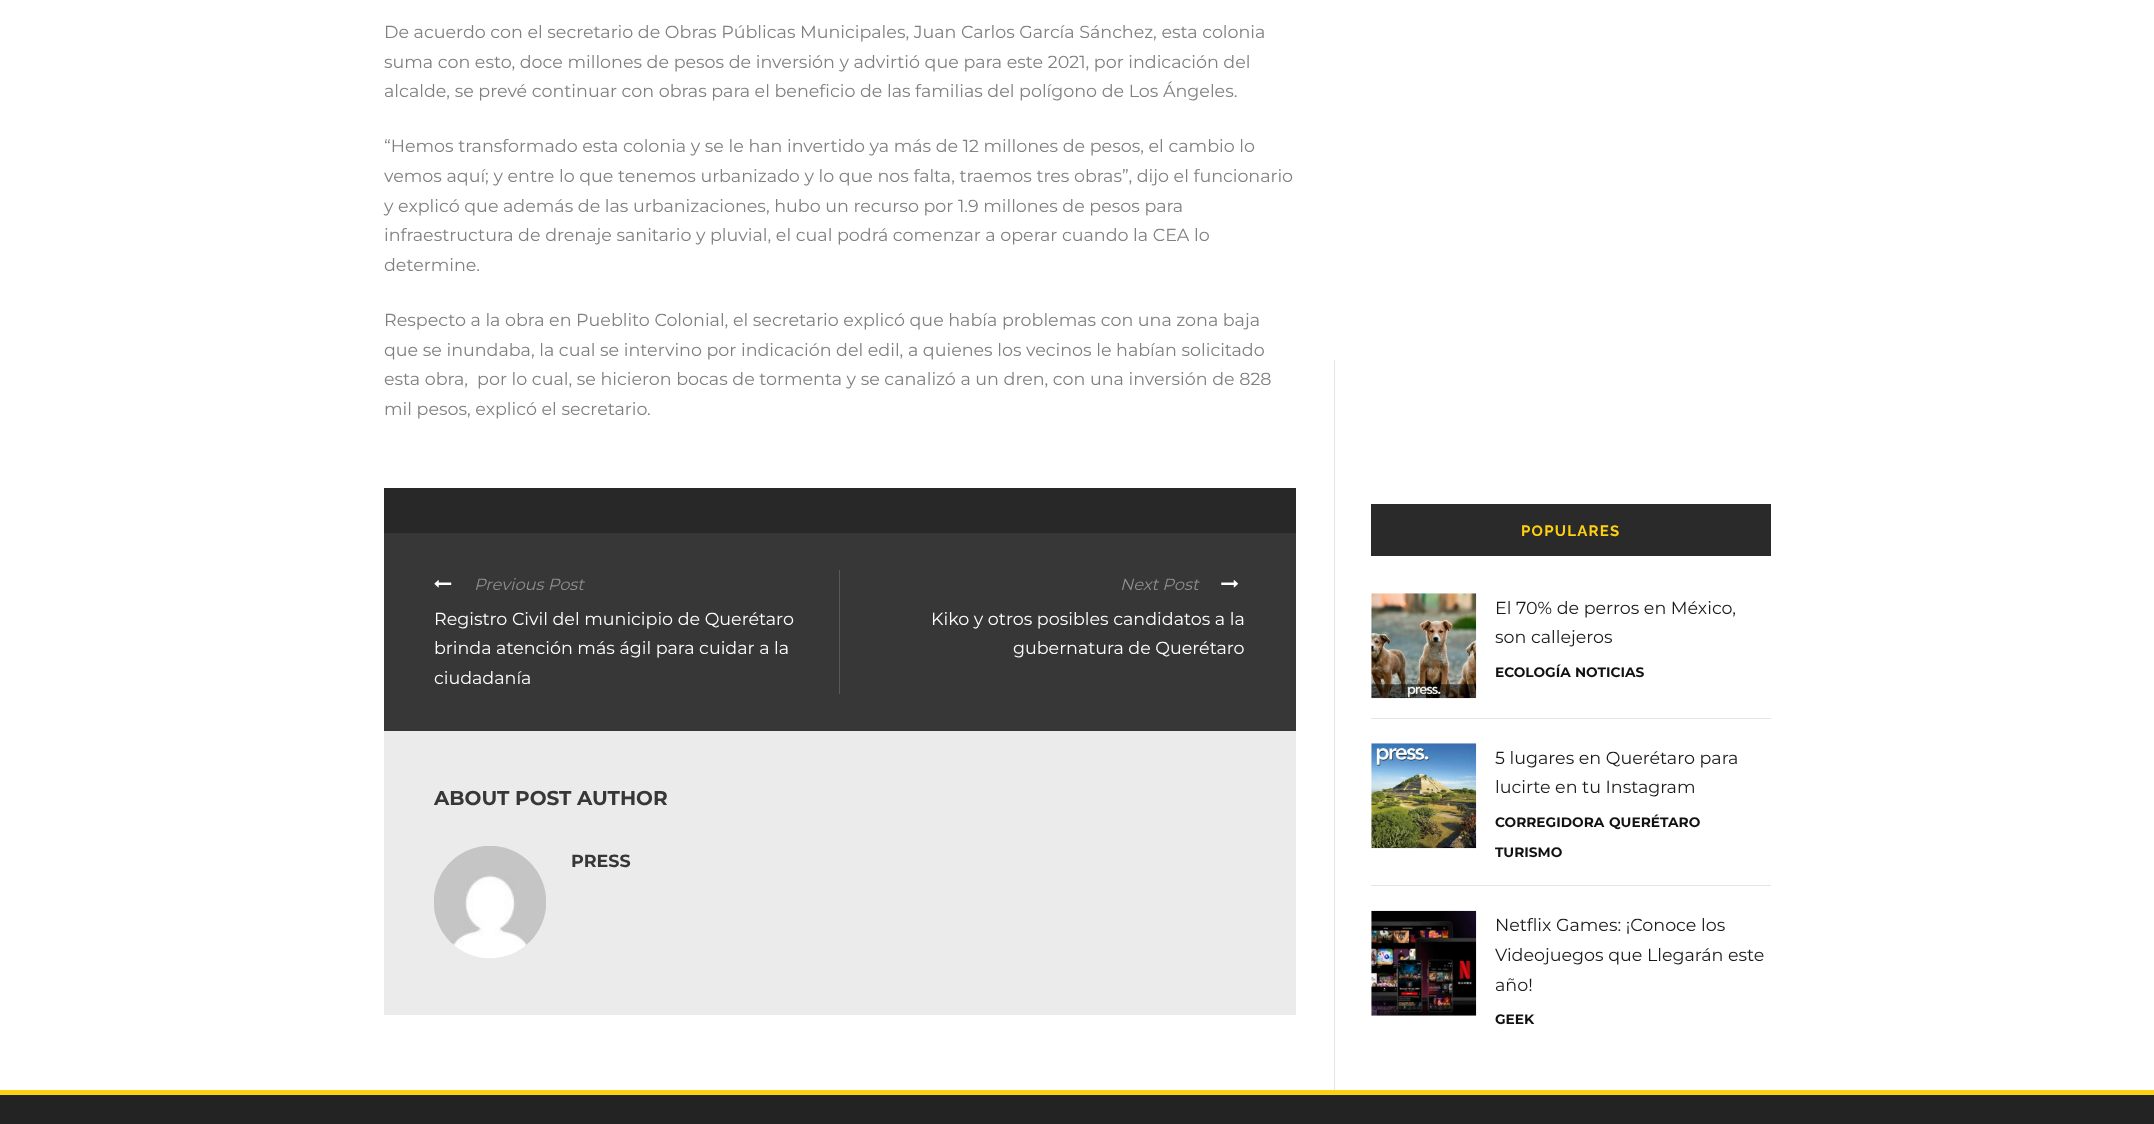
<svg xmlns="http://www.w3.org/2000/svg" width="2154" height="1124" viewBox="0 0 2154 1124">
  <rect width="100%" height="100%" fill="rgb(255,255,255)"/>
  <g font-family="Montserrat" font-size="17.5" fill="rgb(128,128,128)">
    <text>
      <tspan x="384" y="38">De acuerdo con el secretario de Obras Públicas Municipales, Juan Carlos García Sánchez, esta colonia</tspan>
      <tspan x="384" y="68">suma con esto, doce millones de pesos de inversión y advirtió que para este 2021, por indicación del</tspan>
      <tspan x="384" y="97">alcalde, se prevé continuar con obras para el beneficio de las familias del polígono de Los Ángeles.</tspan>
    </text>
    <text>
      <tspan x="384" y="152">“Hemos transformado esta colonia y se le han invertido ya más de 12 millones de pesos, el cambio lo</tspan>
      <tspan x="384" y="182">vemos aquí; y entre lo que tenemos urbanizado y lo que nos falta, traemos tres obras”, dijo el funcionario</tspan>
      <tspan x="384" y="212">y explicó que además de las urbanizaciones, hubo un recurso por 1.9 millones de pesos para</tspan>
      <tspan x="384" y="241">infraestructura de drenaje sanitario y pluvial, el cual podrá comenzar a operar cuando la CEA lo</tspan>
      <tspan x="384" y="271">determine.</tspan>
    </text>
    <text xml:space="preserve"><tspan x="384" y="326">Respecto a la obra en Pueblito Colonial, el secretario explicó que había problemas con una zona baja</tspan><tspan x="384" y="356">que se inundaba, la cual se intervino por indicación del edil, a quienes los vecinos le habían solicitado</tspan><tspan x="384" y="385">esta obra,  por lo cual, se hicieron bocas de tormenta y se canalizó a un dren, con una inversión de 828</tspan><tspan x="384" y="415">mil pesos, explicó el secretario.</tspan></text>
  </g>
  <rect x="384" y="488" width="912" height="45" fill="rgb(40,40,40)"/>
  <rect x="384" y="533" width="912" height="198" fill="rgb(55,55,55)"/>
  <rect x="839" y="570" width="1" height="124" fill="rgb(88,88,88)"/>
  <image x="434" y="580" width="18" height="8" href="pic1.png"/>
  <text x="474" y="590" font-family="Montserrat" font-size="16.25" font-style="italic" fill="rgb(142,142,142)">Previous Post</text>
  <g font-family="Montserrat" font-size="17.5" fill="rgb(255,255,255)">
    <text>
      <tspan x="434" y="625">Registro Civil del municipio de Querétaro</tspan>
      <tspan x="434" y="654">brinda atención más ágil para cuidar a la</tspan>
      <tspan x="434" y="684">ciudadanía</tspan>
    </text>
  </g>
  <text x="1120" y="590" font-family="Montserrat" font-size="16.25" font-style="italic" fill="rgb(142,142,142)">Next Post</text>
  <image x="1221" y="580" width="18" height="8" href="pic2.png"/>
  <g font-family="Montserrat" font-size="17.5" fill="rgb(255,255,255)">
    <text x="931" y="625">Kiko y otros posibles candidatos a la</text>
    <text x="1013" y="654">gubernatura de Querétaro</text>
  </g>
  <rect x="384" y="731" width="912" height="284" fill="rgb(235,235,235)"/>
  <text x="434" y="805" font-family="Montserrat" font-size="20" font-weight="bold" fill="rgb(55,55,55)">ABOUT POST AUTHOR</text>
  <image x="434" y="846" width="112" height="112" href="pic3.png"/>
  <text x="571" y="867" font-family="Montserrat" font-size="17.5" font-weight="bold" fill="rgb(55,55,55)">PRESS</text>
  <rect x="1334" y="360" width="1" height="730" fill="rgb(229,229,229)"/>
  <rect x="1371" y="504" width="400" height="52" fill="rgb(42,42,42)"/>
  <text x="1521" y="536" font-family="Raleway" font-size="15" font-weight="bold" letter-spacing="1.25" fill="rgb(255,208,18)">POPULARES</text>
  <rect x="1371" y="718" width="400" height="1" fill="rgb(229,229,229)"/>
  <image x="1371" y="593" width="106" height="106" href="pic4.png"/>
  <g font-family="Montserrat" font-size="17.5" fill="rgb(26,26,26)">
    <text>
      <tspan x="1495" y="614">El 70% de perros en México,</tspan>
      <tspan x="1495" y="643">son callejeros</tspan>
    </text>
  </g>
  <g font-family="Montserrat" font-size="13.75" font-weight="bold" fill="rgb(17,17,17)">
    <text x="1495" y="677">ECOLOGÍA</text>
    <text x="1575" y="677">NOTICIAS</text>
  </g>
  <rect x="1371" y="885" width="400" height="1" fill="rgb(229,229,229)"/>
  <image x="1371" y="743" width="106" height="106" href="pic5.png"/>
  <g font-family="Montserrat" font-size="17.5" fill="rgb(26,26,26)">
    <text>
      <tspan x="1495" y="764">5 lugares en Querétaro para</tspan>
      <tspan x="1495" y="793">lucirte en tu Instagram</tspan>
    </text>
  </g>
  <g font-family="Montserrat" font-size="13.75" font-weight="bold" fill="rgb(17,17,17)">
    <text x="1495" y="827">CORREGIDORA</text>
    <text x="1609" y="827">QUERÉTARO</text>
    <text x="1495" y="857">TURISMO</text>
  </g>
  <image x="1371" y="910" width="106" height="106" href="pic6.png"/>
  <g font-family="Montserrat" font-size="17.5" fill="rgb(26,26,26)">
    <text>
      <tspan x="1495" y="931">Netflix Games: ¡Conoce los</tspan>
      <tspan x="1495" y="961">Videojuegos que Llegarán este</tspan>
      <tspan x="1495" y="991">año!</tspan>
    </text>
  </g>
  <text x="1495" y="1024" font-family="Montserrat" font-size="13.75" font-weight="bold" fill="rgb(17,17,17)">GEEK</text>
  <rect x="0" y="1095" width="2154" height="29" fill="rgb(35,35,35)"/>
  <rect x="0" y="1090" width="2154" height="5" fill="rgb(255,208,18)"/>
</svg>
